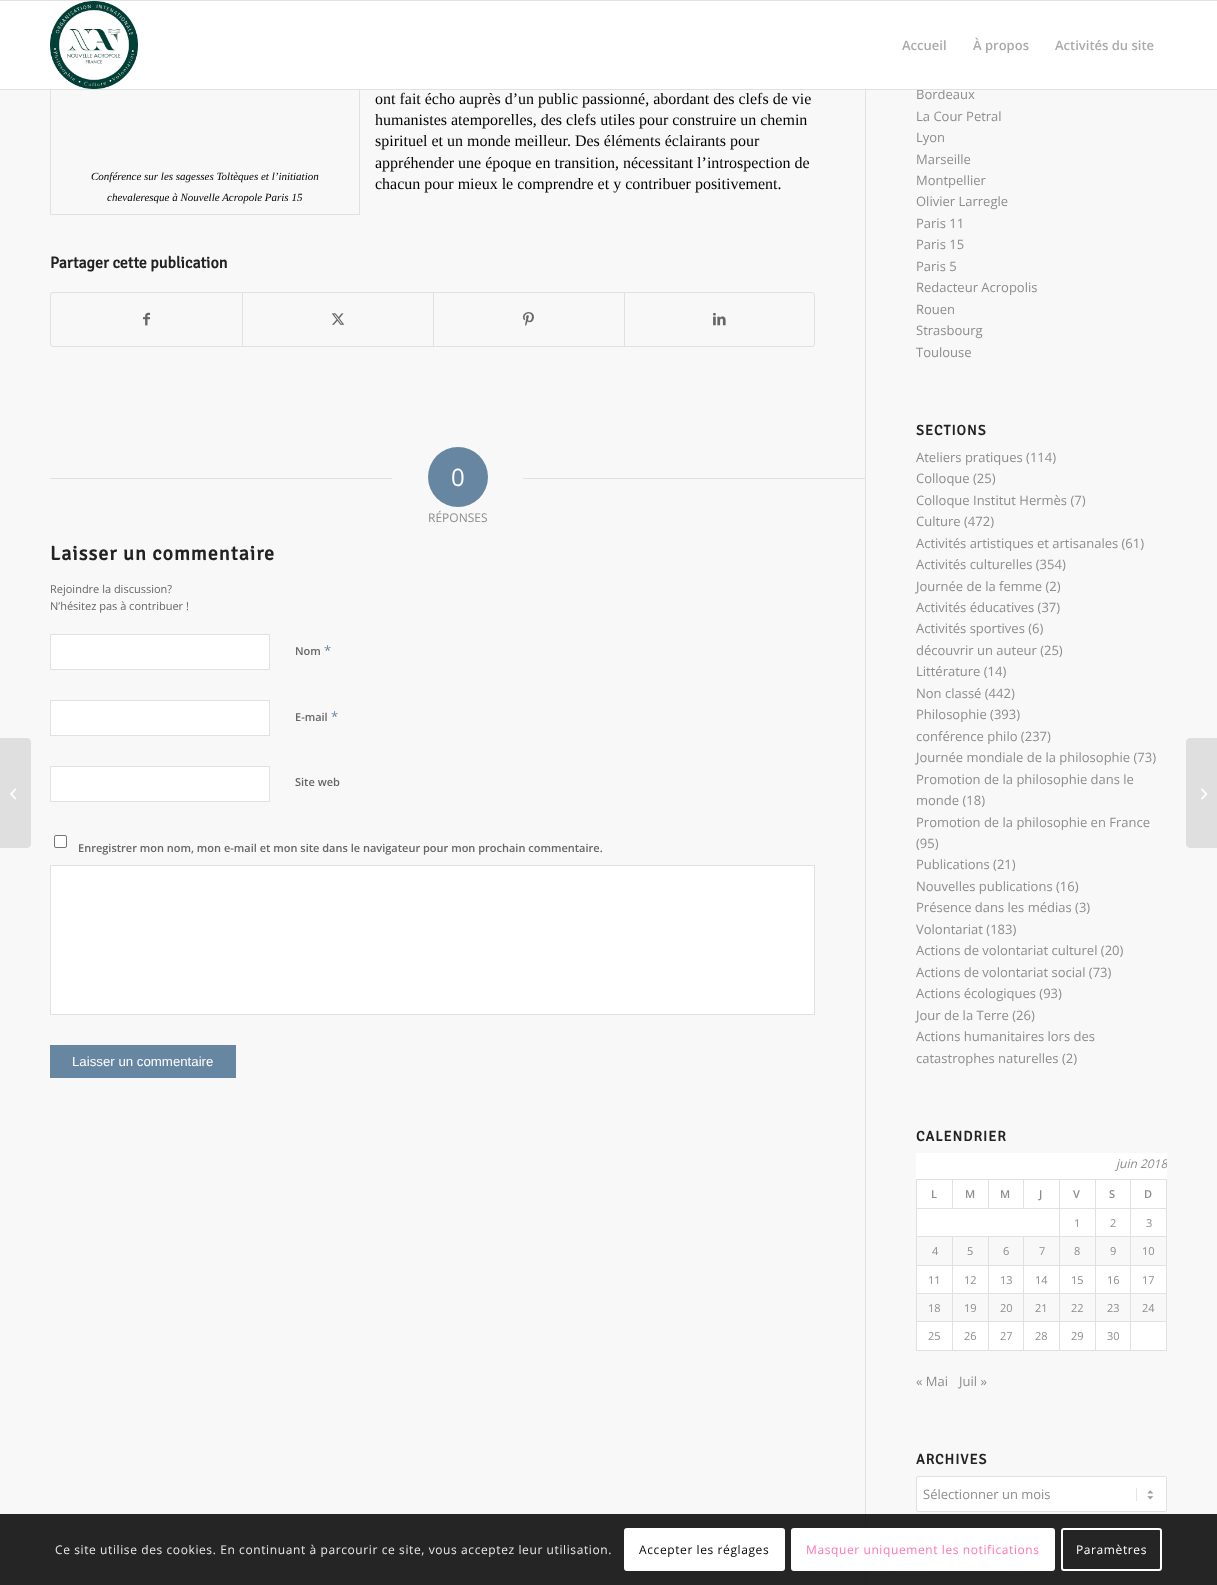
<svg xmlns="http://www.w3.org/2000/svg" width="1217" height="1585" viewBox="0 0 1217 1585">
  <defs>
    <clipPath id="clip1"><rect x="866" y="0" width="301" height="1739"/></clipPath>
  </defs>
  <rect width="100%" height="100%" fill="rgb(248,248,248)"/>
  <rect x="50.5" y="7.5" width="309" height="207" fill="none" stroke="rgb(225,225,225)"/>
  <rect x="865" y="0" width="1" height="1514" fill="rgb(225,225,225)"/>
  <rect x="0" y="1" width="1217" height="88" fill="rgba(255,255,255,0.95)"/>
  <rect x="0" y="0" width="1217" height="1" fill="rgb(225,225,225)"/>
  <text x="916" y="99" font-family="Open Sans" font-size="13" fill="rgb(141,141,141)">Bordeaux</text>
  <rect x="0" y="89" width="1217" height="1" fill="rgb(225,225,225)"/>
  <image x="50" y="1" width="88" height="88" href="pic1.png"/>
  <g font-family="Open Sans" font-size="13" font-weight="600" fill="rgb(170,170,170)">
    <text x="902" y="50">Accueil</text>
    <text x="973" y="50">À propos</text>
    <text x="1055" y="50">Activités du site</text>
  </g>
  <path d="M0 738H27C29 738 31 740 31 742V844C31 846 29 848 27 848H0Z" fill="rgb(223,223,223)"/>
  <image x="10" y="788" width="6" height="12" href="pic2.png"/>
  <rect x="0" y="1514" width="1217" height="71" fill="rgb(37,37,37)"/>
  <g font-family="Liberation Serif" font-size="11" font-style="italic" fill="rgb(0,0,0)">
    <text x="91" y="180">Conférence sur les sagesses Toltèques et l’initiation</text>
    <text x="107" y="201">chevaleresque à Nouvelle Acropole Paris 15</text>
  </g>
  <g font-family="Liberation Serif" font-size="16" fill="rgb(0,0,0)">
    <text>
      <tspan x="375" y="104">ont fait écho auprès d’un public passionné, abordant des clefs de vie</tspan>
      <tspan x="375" y="125">humanistes atemporelles, des clefs utiles pour construire un chemin</tspan>
      <tspan x="375" y="146">spirituel et un monde meilleur. Des éléments éclairants pour</tspan>
      <tspan x="375" y="168">appréhender une époque en transition, nécessitant l’introspection de</tspan>
      <tspan x="375" y="189">chacun pour mieux le comprendre et y contribuer positivement.</tspan>
    </text>
  </g>
  <text x="50" y="268" font-family="Signika Negative" font-size="16" font-weight="bold" fill="rgb(34,34,34)">Partager cette publication</text>
  <rect x="50.5" y="292.5" width="764" height="54" rx="2.5" fill="none" stroke="rgb(225,225,225)"/>
  <image x="143" y="312" width="7" height="14" href="pic3.png"/>
  <rect x="242" y="293" width="1" height="53" fill="rgb(225,225,225)"/>
  <image x="331" y="313" width="14" height="12" href="pic4.png"/>
  <rect x="433" y="293" width="1" height="53" fill="rgb(225,225,225)"/>
  <image x="523" y="312" width="11" height="14" href="pic5.png"/>
  <rect x="624" y="293" width="1" height="53" fill="rgb(225,225,225)"/>
  <image x="713" y="312" width="13" height="14" href="pic6.png"/>
  <rect x="50" y="478" width="342" height="1" fill="rgb(225,225,225)"/>
  <circle cx="458" cy="477" r="30" fill="rgb(103,134,161)"/>
  <text x="451" y="486" font-family="Open Sans" font-size="24" fill="rgb(255,255,255)">0</text>
  <rect x="523" y="478" width="342" height="1" fill="rgb(225,225,225)"/>
  <text x="428" y="522" font-family="Open Sans" font-size="12" fill="rgb(141,141,141)">RÉPONSES</text>
  <text x="50" y="560" font-family="Signika Negative" font-size="20" font-weight="bold" letter-spacing="1" fill="rgb(34,34,34)">Laisser un commentaire</text>
  <g font-family="Open Sans" font-size="11" fill="rgb(102,102,102)">
    <text>
      <tspan x="50" y="593">Rejoindre la discussion?</tspan>
      <tspan x="50" y="610">N’hésitez pas à contribuer !</tspan>
    </text>
  </g>
  <rect x="50.5" y="634.5" width="219" height="35" fill="rgb(255,255,255)" stroke="rgb(225,225,225)"/>
  <text x="295" y="655" font-family="Open Sans" font-size="11" font-weight="600" fill="rgb(102,102,102)">Nom</text>
  <text x="324" y="655" font-family="Open Sans" font-size="13" fill="rgb(103,134,161)">*</text>
  <rect x="50.5" y="700.5" width="219" height="35" fill="rgb(255,255,255)" stroke="rgb(225,225,225)"/>
  <text x="295" y="721" font-family="Open Sans" font-size="11" font-weight="600" fill="rgb(102,102,102)">E-mail</text>
  <text x="331" y="721" font-family="Open Sans" font-size="13" fill="rgb(103,134,161)">*</text>
  <rect x="50.5" y="766.5" width="219" height="35" fill="rgb(255,255,255)" stroke="rgb(225,225,225)"/>
  <text x="295" y="786" font-family="Open Sans" font-size="11" font-weight="600" fill="rgb(102,102,102)">Site web</text>
  <rect x="54.5" y="835.5" width="12" height="12" rx="1.5" fill="rgb(255,255,255)" stroke="rgb(118,118,118)"/>
  <text x="78" y="852" font-family="Open Sans" font-size="11" font-weight="600" fill="rgb(102,102,102)">Enregistrer mon nom, mon e-mail et mon site dans le navigateur pour mon prochain commentaire.</text>
  <rect x="50.5" y="865.5" width="764" height="149" fill="rgb(255,255,255)" stroke="rgb(225,225,225)"/>
  <rect x="50" y="1045" width="186" height="33" fill="rgb(103,134,161)"/>
  <text x="72" y="1066" font-family="Liberation Sans" font-size="13.25" fill="rgb(255,255,255)">Laisser un commentaire</text>
  <rect x="865" y="1514" width="1" height="71" fill="rgb(34,34,34)"/>
  <g font-family="Open Sans" font-size="13" fill="rgb(141,141,141)">
    <text>
      <tspan x="916" y="121">La Cour Petral</tspan>
      <tspan x="916" y="142">Lyon</tspan>
      <tspan x="916" y="164">Marseille</tspan>
      <tspan x="916" y="185">Montpellier</tspan>
      <tspan x="916" y="206">Olivier Larregle</tspan>
      <tspan x="916" y="228">Paris 11</tspan>
      <tspan x="916" y="249">Paris 15</tspan>
      <tspan x="916" y="271">Paris 5</tspan>
      <tspan x="916" y="292">Redacteur Acropolis</tspan>
      <tspan x="916" y="314">Rouen</tspan>
      <tspan x="916" y="335">Strasbourg</tspan>
      <tspan x="916" y="357">Toulouse</tspan>
    </text>
  </g>
  <text x="916" y="435" font-family="Signika Negative" font-size="14.25" font-weight="bold" letter-spacing="1" fill="rgb(34,34,34)">SECTIONS</text>
  <g font-family="Open Sans" font-size="13" fill="rgb(141,141,141)">
    <text>
      <tspan x="916" y="462">Ateliers pratiques (114)</tspan>
      <tspan x="916" y="483">Colloque (25)</tspan>
      <tspan x="916" y="505">Colloque Institut Hermès (7)</tspan>
      <tspan x="916" y="526">Culture (472)</tspan>
      <tspan x="916" y="548">Activités artistiques et artisanales (61)</tspan>
      <tspan x="916" y="569">Activités culturelles (354)</tspan>
      <tspan x="916" y="591">Journée de la femme (2)</tspan>
      <tspan x="916" y="612">Activités éducatives (37)</tspan>
      <tspan x="916" y="633">Activités sportives (6)</tspan>
      <tspan x="916" y="655">découvrir un auteur (25)</tspan>
      <tspan x="916" y="676">Littérature (14)</tspan>
      <tspan x="916" y="698">Non classé (442)</tspan>
      <tspan x="916" y="719">Philosophie (393)</tspan>
      <tspan x="916" y="741">conférence philo (237)</tspan>
      <tspan x="916" y="762">Journée mondiale de la philosophie (73)</tspan>
      <tspan x="916" y="784">Promotion de la philosophie dans le</tspan>
      <tspan x="916" y="805">monde (18)</tspan>
      <tspan x="916" y="827">Promotion de la philosophie en France</tspan>
      <tspan x="916" y="848">(95)</tspan>
      <tspan x="916" y="869">Publications (21)</tspan>
      <tspan x="916" y="891">Nouvelles publications (16)</tspan>
      <tspan x="916" y="912">Présence dans les médias (3)</tspan>
      <tspan x="916" y="934">Volontariat (183)</tspan>
      <tspan x="916" y="955">Actions de volontariat culturel (20)</tspan>
      <tspan x="916" y="977">Actions de volontariat social (73)</tspan>
      <tspan x="916" y="998">Actions écologiques (93)</tspan>
      <tspan x="916" y="1020">Jour de la Terre (26)</tspan>
      <tspan x="916" y="1041">Actions humanitaires lors des</tspan>
      <tspan x="916" y="1063">catastrophes naturelles (2)</tspan>
    </text>
  </g>
  <text x="916" y="1141" font-family="Signika Negative" font-size="14.25" font-weight="bold" letter-spacing="1" fill="rgb(34,34,34)">CALENDRIER</text>
  <rect x="916" y="1153" width="251" height="197" fill="rgb(255,255,255)"/>
  <g clip-path="url(#clip1)">
    <text x="1116" y="1168" font-family="Open Sans" font-size="12" font-style="italic" fill="rgb(141,141,141)">juin 2018</text>
  </g>
  <rect x="916" y="1179" width="251" height="1" fill="rgb(225,225,225)"/>
  <rect x="916" y="1208" width="251" height="1" fill="rgb(225,225,225)"/>
  <rect x="952" y="1179" width="1" height="30" fill="rgb(225,225,225)"/>
  <rect x="1166" y="1236" width="1" height="115" fill="rgb(225,225,225)"/>
  <rect x="1166" y="1208" width="1" height="29" fill="rgb(225,225,225)"/>
  <rect x="917" y="1237" width="249" height="28" fill="rgb(248,248,248)"/>
  <rect x="917" y="1294" width="249" height="27" fill="rgb(248,248,248)"/>
  <rect x="1130" y="1350" width="37" height="1" fill="rgb(225,225,225)"/>
  <rect x="1130" y="1321" width="1" height="30" fill="rgb(225,225,225)"/>
  <rect x="1130" y="1321" width="37" height="1" fill="rgb(225,225,225)"/>
  <rect x="1130" y="1293" width="1" height="29" fill="rgb(225,225,225)"/>
  <rect x="1130" y="1293" width="37" height="1" fill="rgb(225,225,225)"/>
  <rect x="1130" y="1265" width="1" height="29" fill="rgb(225,225,225)"/>
  <rect x="1130" y="1265" width="37" height="1" fill="rgb(225,225,225)"/>
  <rect x="1130" y="1236" width="1" height="30" fill="rgb(225,225,225)"/>
  <rect x="1130" y="1236" width="37" height="1" fill="rgb(225,225,225)"/>
  <rect x="1130" y="1208" width="1" height="29" fill="rgb(225,225,225)"/>
  <rect x="1095" y="1350" width="36" height="1" fill="rgb(225,225,225)"/>
  <rect x="1095" y="1321" width="1" height="30" fill="rgb(225,225,225)"/>
  <rect x="1095" y="1321" width="36" height="1" fill="rgb(225,225,225)"/>
  <rect x="1095" y="1293" width="1" height="29" fill="rgb(225,225,225)"/>
  <rect x="1095" y="1293" width="36" height="1" fill="rgb(225,225,225)"/>
  <rect x="1095" y="1265" width="1" height="29" fill="rgb(225,225,225)"/>
  <rect x="1095" y="1265" width="36" height="1" fill="rgb(225,225,225)"/>
  <rect x="1095" y="1236" width="1" height="30" fill="rgb(225,225,225)"/>
  <rect x="1095" y="1236" width="36" height="1" fill="rgb(225,225,225)"/>
  <rect x="1095" y="1208" width="1" height="29" fill="rgb(225,225,225)"/>
  <rect x="1059" y="1350" width="37" height="1" fill="rgb(225,225,225)"/>
  <rect x="1059" y="1321" width="1" height="30" fill="rgb(225,225,225)"/>
  <rect x="1059" y="1321" width="37" height="1" fill="rgb(225,225,225)"/>
  <rect x="1059" y="1293" width="1" height="29" fill="rgb(225,225,225)"/>
  <rect x="1059" y="1293" width="37" height="1" fill="rgb(225,225,225)"/>
  <rect x="1059" y="1265" width="1" height="29" fill="rgb(225,225,225)"/>
  <rect x="1059" y="1265" width="37" height="1" fill="rgb(225,225,225)"/>
  <rect x="1059" y="1236" width="1" height="30" fill="rgb(225,225,225)"/>
  <rect x="1059" y="1236" width="37" height="1" fill="rgb(225,225,225)"/>
  <rect x="1059" y="1208" width="1" height="29" fill="rgb(225,225,225)"/>
  <rect x="1023" y="1350" width="37" height="1" fill="rgb(225,225,225)"/>
  <rect x="1023" y="1321" width="1" height="30" fill="rgb(225,225,225)"/>
  <rect x="1023" y="1321" width="37" height="1" fill="rgb(225,225,225)"/>
  <rect x="1023" y="1293" width="1" height="29" fill="rgb(225,225,225)"/>
  <rect x="1023" y="1293" width="37" height="1" fill="rgb(225,225,225)"/>
  <rect x="1023" y="1265" width="1" height="29" fill="rgb(225,225,225)"/>
  <rect x="1023" y="1265" width="37" height="1" fill="rgb(225,225,225)"/>
  <rect x="1023" y="1236" width="1" height="30" fill="rgb(225,225,225)"/>
  <rect x="988" y="1350" width="36" height="1" fill="rgb(225,225,225)"/>
  <rect x="988" y="1321" width="1" height="30" fill="rgb(225,225,225)"/>
  <rect x="988" y="1321" width="36" height="1" fill="rgb(225,225,225)"/>
  <rect x="988" y="1293" width="1" height="29" fill="rgb(225,225,225)"/>
  <rect x="988" y="1293" width="36" height="1" fill="rgb(225,225,225)"/>
  <rect x="988" y="1265" width="1" height="29" fill="rgb(225,225,225)"/>
  <rect x="988" y="1265" width="36" height="1" fill="rgb(225,225,225)"/>
  <rect x="988" y="1236" width="1" height="30" fill="rgb(225,225,225)"/>
  <rect x="952" y="1350" width="37" height="1" fill="rgb(225,225,225)"/>
  <rect x="952" y="1321" width="1" height="30" fill="rgb(225,225,225)"/>
  <rect x="952" y="1321" width="37" height="1" fill="rgb(225,225,225)"/>
  <rect x="952" y="1293" width="1" height="29" fill="rgb(225,225,225)"/>
  <rect x="952" y="1293" width="37" height="1" fill="rgb(225,225,225)"/>
  <rect x="952" y="1265" width="1" height="29" fill="rgb(225,225,225)"/>
  <rect x="952" y="1265" width="37" height="1" fill="rgb(225,225,225)"/>
  <rect x="952" y="1236" width="1" height="30" fill="rgb(225,225,225)"/>
  <rect x="916" y="1350" width="37" height="1" fill="rgb(225,225,225)"/>
  <rect x="916" y="1321" width="1" height="30" fill="rgb(225,225,225)"/>
  <rect x="916" y="1321" width="37" height="1" fill="rgb(225,225,225)"/>
  <rect x="916" y="1293" width="1" height="29" fill="rgb(225,225,225)"/>
  <rect x="916" y="1293" width="37" height="1" fill="rgb(225,225,225)"/>
  <rect x="916" y="1265" width="1" height="29" fill="rgb(225,225,225)"/>
  <rect x="916" y="1265" width="37" height="1" fill="rgb(225,225,225)"/>
  <rect x="916" y="1236" width="1" height="30" fill="rgb(225,225,225)"/>
  <rect x="916" y="1236" width="144" height="1" fill="rgb(225,225,225)"/>
  <rect x="916" y="1208" width="1" height="29" fill="rgb(225,225,225)"/>
  <rect x="916" y="1179" width="1" height="30" fill="rgb(225,225,225)"/>
  <text x="931" y="1198" font-family="Open Sans" font-size="11" font-weight="600" letter-spacing="2" fill="rgb(141,141,141)">L</text>
  <rect x="988" y="1179" width="1" height="30" fill="rgb(225,225,225)"/>
  <text x="965" y="1198" font-family="Open Sans" font-size="11" font-weight="600" letter-spacing="2" fill="rgb(141,141,141)">M</text>
  <rect x="1023" y="1179" width="1" height="30" fill="rgb(225,225,225)"/>
  <text x="1000" y="1198" font-family="Open Sans" font-size="11" font-weight="600" letter-spacing="2" fill="rgb(141,141,141)">M</text>
  <rect x="1059" y="1179" width="1" height="30" fill="rgb(225,225,225)"/>
  <text x="1039" y="1198" font-family="Open Sans" font-size="11" font-weight="600" letter-spacing="2" fill="rgb(141,141,141)">J</text>
  <rect x="1095" y="1179" width="1" height="30" fill="rgb(225,225,225)"/>
  <text x="1073" y="1198" font-family="Open Sans" font-size="11" font-weight="600" letter-spacing="2" fill="rgb(141,141,141)">V</text>
  <rect x="1130" y="1179" width="1" height="30" fill="rgb(225,225,225)"/>
  <text x="1109" y="1198" font-family="Open Sans" font-size="11" font-weight="600" letter-spacing="2" fill="rgb(141,141,141)">S</text>
  <rect x="1166" y="1179" width="1" height="30" fill="rgb(225,225,225)"/>
  <text x="1144" y="1198" font-family="Open Sans" font-size="11" font-weight="600" letter-spacing="2" fill="rgb(141,141,141)">D</text>
  <g font-family="Open Sans" font-size="11" fill="rgb(141,141,141)">
    <text x="1074" y="1227">1</text>
    <text x="1110" y="1227">2</text>
    <text x="1146" y="1227">3</text>
    <text x="932" y="1255">4</text>
    <text x="967" y="1255">5</text>
    <text x="1003" y="1255">6</text>
    <text x="1039" y="1255">7</text>
    <text x="1074" y="1255">8</text>
    <text x="1110" y="1255">9</text>
    <text x="1142" y="1255">10</text>
    <text x="928" y="1284">11</text>
    <text x="964" y="1284">12</text>
    <text x="1000" y="1284">13</text>
    <text x="1035" y="1284">14</text>
    <text x="1071" y="1284">15</text>
    <text x="1107" y="1284">16</text>
    <text x="1142" y="1284">17</text>
    <text x="928" y="1312">18</text>
    <text x="964" y="1312">19</text>
    <text x="1000" y="1312">20</text>
    <text x="1035" y="1312">21</text>
    <text x="1071" y="1312">22</text>
    <text x="1107" y="1312">23</text>
    <text x="1142" y="1312">24</text>
    <text x="928" y="1340">25</text>
    <text x="964" y="1340">26</text>
    <text x="1000" y="1340">27</text>
    <text x="1035" y="1340">28</text>
    <text x="1071" y="1340">29</text>
    <text x="1107" y="1340">30</text>
  </g>
  <g font-family="Open Sans" font-size="13" fill="rgb(141,141,141)">
    <text x="916" y="1386">« Mai</text>
    <text x="959" y="1386">Juil »</text>
  </g>
  <text x="916" y="1464" font-family="Signika Negative" font-size="14.25" font-weight="bold" letter-spacing="1" fill="rgb(34,34,34)">ARCHIVES</text>
  <rect x="916" y="1476" width="251" height="36" rx="2" fill="rgb(255,255,255)"/>
  <image x="1136" y="1488" width="18" height="13" href="pic7.png"/>
  <rect x="916.5" y="1476.5" width="250" height="35" rx="1.5" fill="none" stroke="rgb(225,225,225)"/>
  <text x="923" y="1499" font-family="Open Sans" font-size="13" fill="rgb(141,141,141)">Sélectionner un mois</text>
  <path d="M1190 738H1217V848H1190C1188 848 1186 846 1186 844V742C1186 740 1188 738 1190 738Z" fill="rgb(223,223,223)"/>
  <image x="1201" y="788" width="6" height="12" href="pic8.png"/>
  <text x="55" y="1554" font-family="Open Sans" font-size="12" letter-spacing="0.6" fill="rgb(233,233,233)">Ce site utilise des cookies. En continuant à parcourir ce site, vous acceptez leur utilisation.</text>
  <rect x="624" y="1528" width="161" height="43" rx="3" fill="rgb(255,255,255)"/>
  <text x="639" y="1554" font-family="Open Sans" font-size="12" letter-spacing="0.6" fill="rgb(0,0,0)">Accepter les réglages</text>
  <rect x="792" y="1529" width="262" height="41" rx="2" fill="rgb(255,255,255)" stroke="rgb(255,255,255)" stroke-width="2"/>
  <text x="806" y="1554" font-family="Open Sans" font-size="12" letter-spacing="0.6" fill="rgb(255,117,181)">Masquer uniquement les notifications</text>
  <rect x="1062" y="1529" width="99" height="41" rx="2" fill="none" stroke="rgb(255,255,255)" stroke-width="2"/>
  <text x="1076" y="1554" font-family="Open Sans" font-size="12" letter-spacing="0.6" fill="rgb(255,255,255)">Paramètres</text>
</svg>
